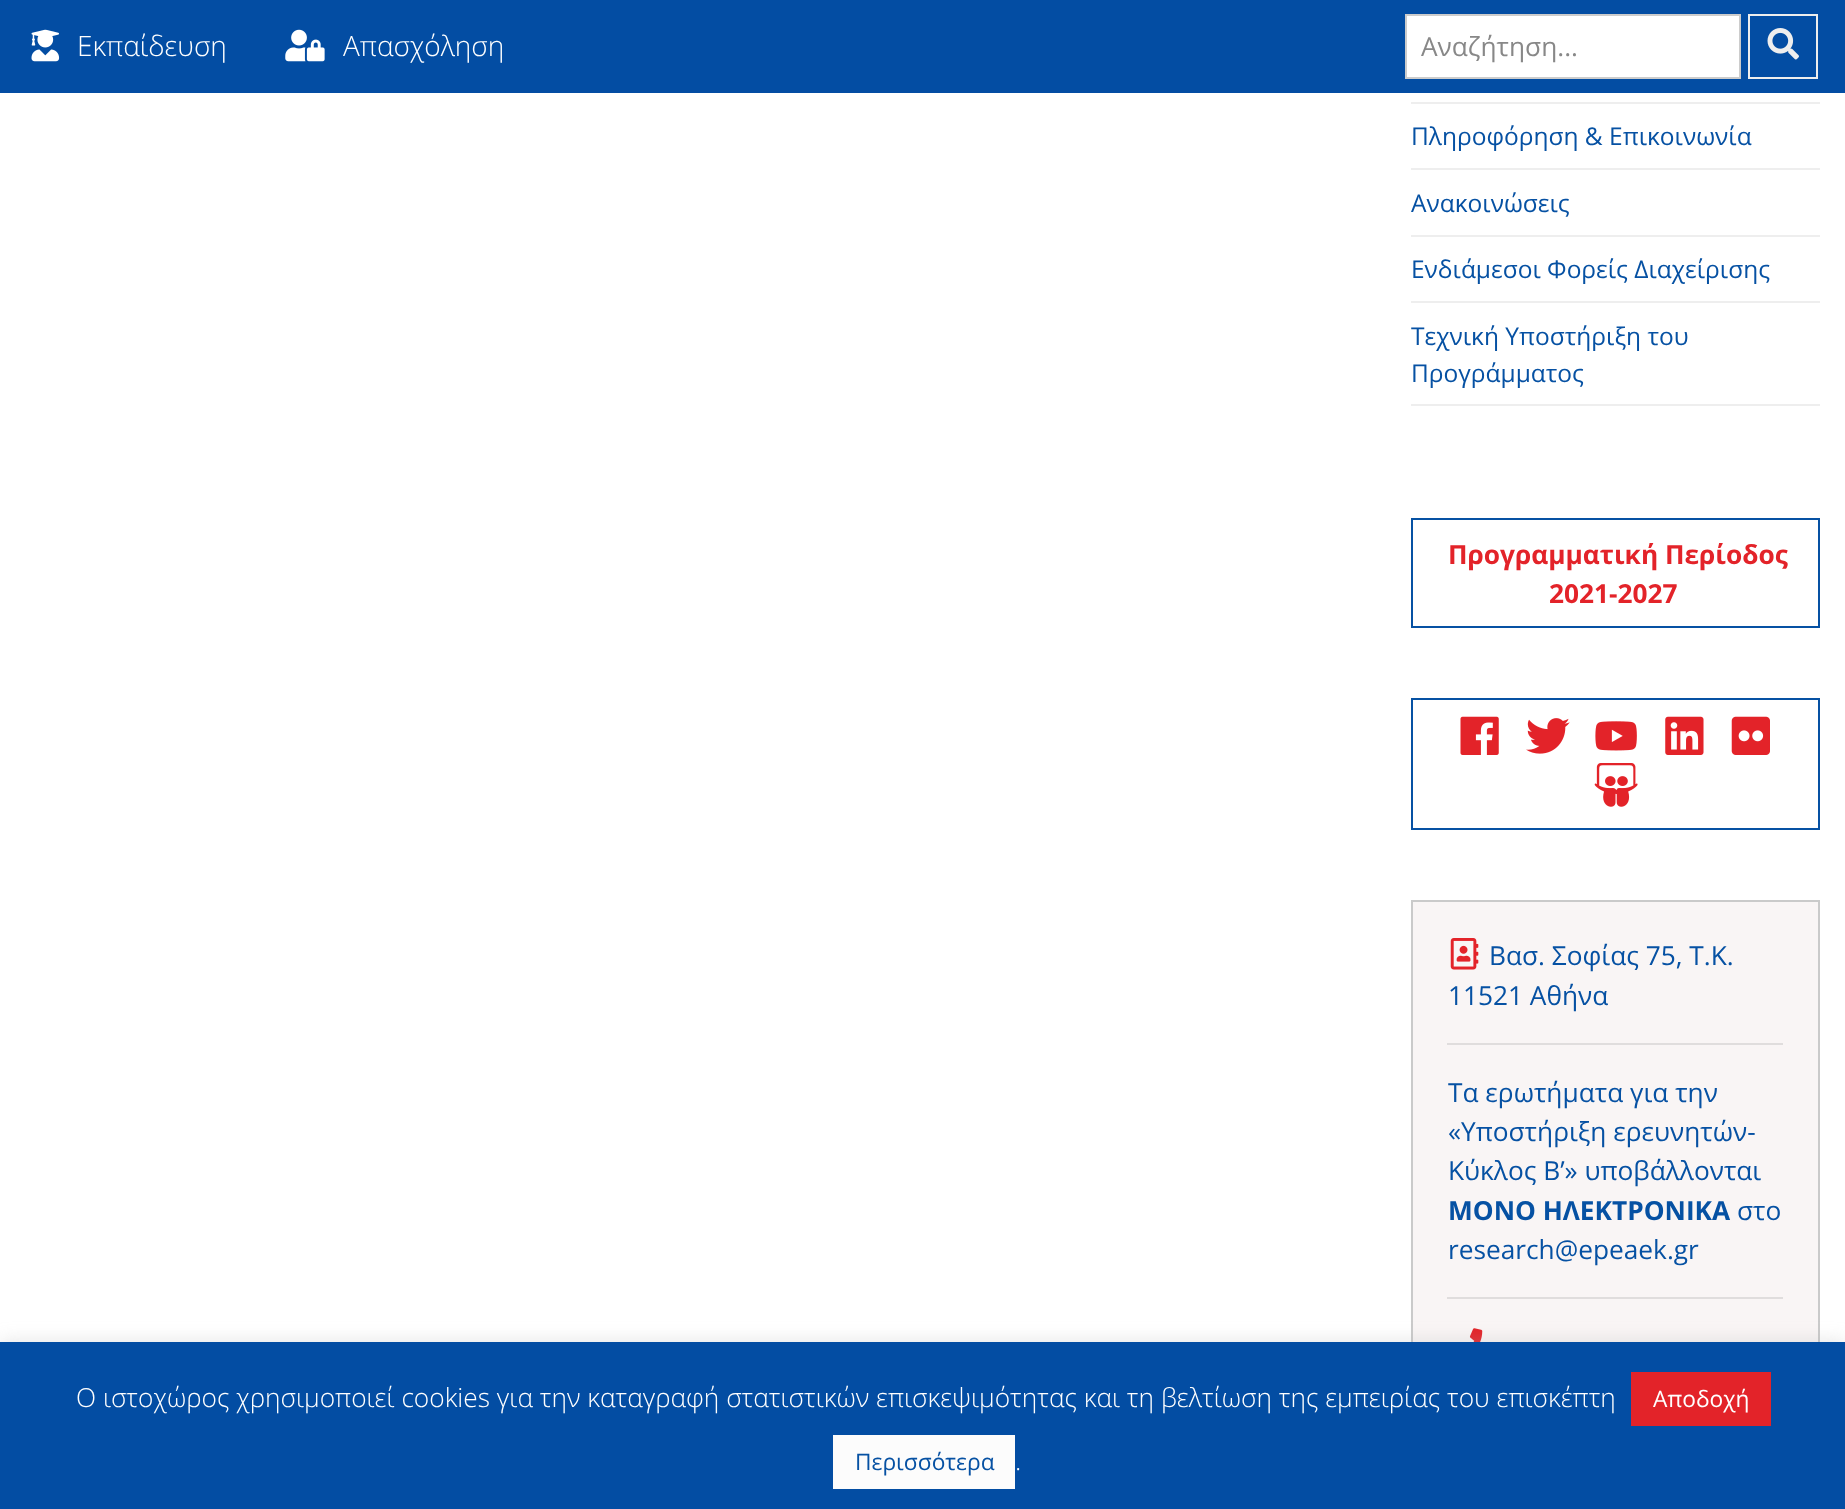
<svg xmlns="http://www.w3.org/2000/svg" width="1845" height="1509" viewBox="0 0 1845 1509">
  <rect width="100%" height="100%" fill="rgb(255,255,255)"/>
  <rect x="0" y="0" width="1845" height="93" fill="rgb(3,77,163)"/>
  <image x="31" y="29" width="29" height="33" href="pic1.png"/>
  <text x="77" y="56" font-family="Open Sans" font-size="28" font-weight="300" fill="rgb(255,255,255)">Εκπαίδευση</text>
  <image x="285" y="29" width="40" height="33" href="pic2.png"/>
  <text x="343" y="56" font-family="Open Sans" font-size="28" font-weight="300" fill="rgb(255,255,255)">Απασχόληση</text>
  <rect x="1406" y="15" width="334" height="63" fill="rgb(255,255,255)" stroke="rgb(204,204,204)" stroke-width="2"/>
  <text x="1421" y="56" font-family="Open Sans" font-size="26.25" fill="rgb(136,136,136)">Αναζήτηση...</text>
  <rect x="1749" y="15" width="68" height="63" fill="none" stroke="rgb(238,238,238)" stroke-width="2"/>
  <image x="1767" y="28" width="32" height="32" href="pic3.png"/>
  <rect x="1411" y="102" width="409" height="2" fill="rgb(238,238,238)"/>
  <rect x="1411" y="168" width="409" height="2" fill="rgb(238,238,238)"/>
  <text x="1411" y="145" font-family="Open Sans" font-size="24.5" fill="rgb(6,81,163)">Πληροφόρηση &amp; Επικοινωνία</text>
  <rect x="1411" y="235" width="409" height="2" fill="rgb(238,238,238)"/>
  <text x="1411" y="212" font-family="Open Sans" font-size="24.5" fill="rgb(6,81,163)">Ανακοινώσεις</text>
  <rect x="1411" y="301" width="409" height="2" fill="rgb(238,238,238)"/>
  <text x="1411" y="278" font-family="Open Sans" font-size="24.5" fill="rgb(6,81,163)">Ενδιάμεσοι Φορείς Διαχείρισης</text>
  <rect x="1411" y="404" width="409" height="2" fill="rgb(238,238,238)"/>
  <g font-family="Open Sans" font-size="24.5" fill="rgb(6,81,163)">
    <text>
      <tspan x="1411" y="345">Τεχνική Υποστήριξη του</tspan>
      <tspan x="1411" y="382">Προγράμματος</tspan>
    </text>
  </g>
  <rect x="1412" y="519" width="407" height="108" fill="none" stroke="rgb(6,81,163)" stroke-width="2"/>
  <g font-family="Open Sans" font-size="26.25" font-weight="bold" fill="rgb(227,35,41)">
    <text x="1448" y="564">Προγραμματική Περίοδος</text>
    <text x="1549" y="603">2021-2027</text>
  </g>
  <rect x="1412" y="699" width="407" height="130" fill="none" stroke="rgb(6,81,163)" stroke-width="2"/>
  <image x="1460" y="716" width="39" height="39" href="pic4.png"/>
  <image x="1526" y="718" width="44" height="36" href="pic5.png"/>
  <image x="1595" y="721" width="42" height="30" href="pic6.png"/>
  <image x="1665" y="716" width="39" height="39" href="pic7.png"/>
  <image x="1731" y="716" width="39" height="39" href="pic8.png"/>
  <image x="1594" y="763" width="44" height="44" href="pic9.png"/>
  <rect x="1413" y="902" width="405" height="440" fill="rgb(249,245,245)"/>
  <rect x="1412" y="901" width="407" height="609" fill="none" stroke="rgb(202,202,202)" stroke-width="2"/>
  <image x="1450" y="938" width="29" height="32" href="pic10.png"/>
  <g font-family="Open Sans" font-size="26.25" fill="rgb(6,81,163)">
    <text x="1489" y="965">Βασ. Σοφίας 75, Τ.Κ.</text>
    <text x="1448" y="1005">11521 Αθήνα</text>
  </g>
  <rect x="1447" y="1043" width="336" height="2" fill="rgb(224,221,221)"/>
  <g font-family="Open Sans" font-size="26.25" fill="rgb(6,81,163)">
    <text>
      <tspan x="1448" y="1102">Τα ερωτήματα για την</tspan>
      <tspan x="1448" y="1141">«Υποστήριξη ερευνητών-</tspan>
      <tspan x="1448" y="1180">Κύκλος Β’» υποβάλλονται</tspan>
    </text>
  </g>
  <text x="1448" y="1220" font-family="Open Sans" font-size="26.25" font-weight="bold" fill="rgb(6,81,163)">ΜΟΝΟ ΗΛΕΚΤΡΟΝΙΚΑ</text>
  <g font-family="Open Sans" font-size="26.25" fill="rgb(6,81,163)">
    <text x="1737" y="1220">στο</text>
    <text x="1448" y="1259">research@epeaek.gr</text>
  </g>
  <rect x="1447" y="1297" width="336" height="2" fill="rgb(224,221,221)"/>
  <image x="1469" y="1328" width="14" height="14" href="pic11.png"/>
  <rect x="0" y="1341" width="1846" height="168" fill="rgba(172,171,171,0.3)" filter="blur(9px)"/>
  <rect x="0" y="1342" width="1845" height="167" fill="rgb(3,77,163)"/>
  <text x="76" y="1407" font-family="Open Sans" font-size="26.25" font-weight="300" fill="rgb(255,255,255)">Ο ιστοχώρος χρησιμοποιεί cookies για την καταγραφή στατιστικών επισκεψιμότητας και τη βελτίωση της εμπειρίας του επισκέπτη</text>
  <rect x="1631" y="1372" width="140" height="54" fill="rgb(227,35,41)"/>
  <text x="1653" y="1407" font-family="Open Sans" font-size="22.75" fill="rgb(255,255,255)">Αποδοχή</text>
  <rect x="833" y="1435" width="182" height="54" fill="rgb(252,252,252)"/>
  <text x="855" y="1470" font-family="Open Sans" font-size="22.75" fill="rgb(6,81,163)">Περισσότερα</text>
  <text x="1015" y="1470" font-family="Open Sans" font-size="26.25" font-weight="300" fill="rgb(255,255,255)">.</text>
</svg>
